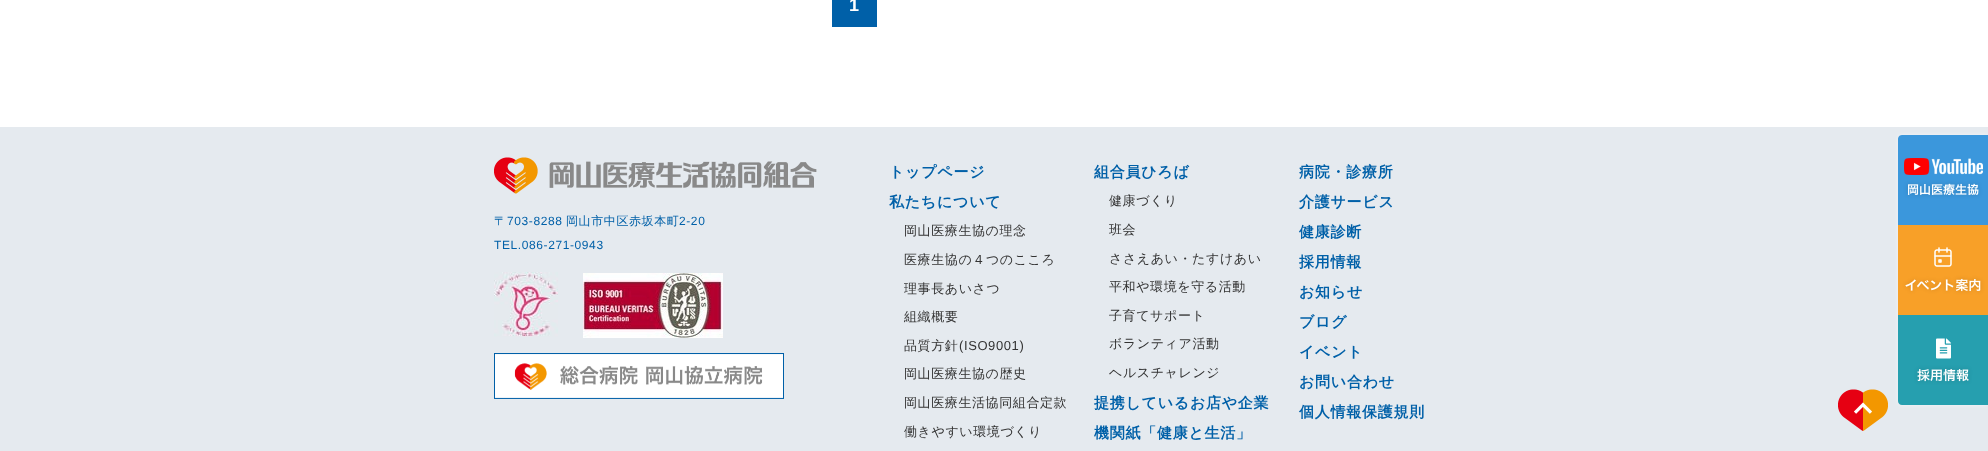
<svg xmlns="http://www.w3.org/2000/svg" width="1988" height="451" viewBox="0 0 1988 451">
  <rect width="100%" height="100%" fill="rgb(255,255,255)"/>
  <rect x="832" y="0" width="45" height="27" fill="rgb(0,96,168)"/>
  <text x="849" y="11" font-family="Liberation Sans" font-size="18" font-weight="bold" letter-spacing="1" fill="rgb(255,255,255)">1</text>
  <rect x="0" y="127" width="1988" height="324" fill="rgb(229,234,239)"/>
  <image x="494" y="157" width="323" height="37" href="pic1.png"/>
  <text x="494" y="225" font-family="WenQuanYi Zen Hei" font-size="12" font-weight="500" letter-spacing="0.6" fill="rgb(0,96,168)">〒</text>
  <text x="507" y="225" font-family="Liberation Sans" font-size="12" letter-spacing="0.6" fill="rgb(0,96,168)">703-8288</text>
  <text x="566" y="225" font-family="WenQuanYi Zen Hei" font-size="12" font-weight="500" letter-spacing="0.6" fill="rgb(0,96,168)">岡⼭市中区赤坂本町</text>
  <g font-family="Liberation Sans" font-size="12" letter-spacing="0.6" fill="rgb(0,96,168)">
    <text x="679" y="225">2-20</text>
    <text x="494" y="249">TEL.086-271-0943</text>
  </g>
  <image x="494" y="272" width="64" height="65" href="pic2.png"/>
  <image x="583" y="273" width="140" height="65" href="pic3.png"/>
  <image x="494" y="353" width="290" height="46" href="pic4.png"/>
  <g font-family="WenQuanYi Zen Hei" font-size="15" font-weight="bold" letter-spacing="0.75" fill="rgb(0,96,168)">
    <text x="889" y="177">トップページ</text>
    <text x="889" y="207">私たちについて</text>
  </g>
  <g font-family="WenQuanYi Zen Hei" font-size="13" font-weight="500" letter-spacing="0.6" fill="rgb(51,51,51)">
    <text x="904" y="235">岡山医療生協の理念</text>
    <text x="904" y="264">医療生協の４つのこころ</text>
    <text x="904" y="293">理事長あいさつ</text>
    <text x="904" y="321">組織概要</text>
    <text x="904" y="350">品質方針</text>
  </g>
  <text x="959" y="350" font-family="Liberation Sans" font-size="13" letter-spacing="0.6" fill="rgb(51,51,51)">(ISO9001)</text>
  <g font-family="WenQuanYi Zen Hei" font-size="13" font-weight="500" letter-spacing="0.6" fill="rgb(51,51,51)">
    <text x="904" y="378">岡山医療生協の歴史</text>
    <text x="904" y="407">岡山医療生活協同組合定款</text>
    <text x="904" y="436">働きやすい環境づくり</text>
  </g>
  <text x="1094" y="177" font-family="WenQuanYi Zen Hei" font-size="15" font-weight="bold" letter-spacing="0.75" fill="rgb(0,96,168)">組合員ひろば</text>
  <g font-family="WenQuanYi Zen Hei" font-size="13" font-weight="500" letter-spacing="0.6" fill="rgb(51,51,51)">
    <text x="1109" y="205">健康づくり</text>
    <text x="1109" y="234">班会</text>
    <text x="1109" y="263">ささえあい・たすけあい</text>
    <text x="1109" y="291">平和や環境を守る活動</text>
    <text x="1109" y="320">子育てサポート</text>
    <text x="1109" y="348">ボランティア活動</text>
    <text x="1109" y="377">ヘルスチャレンジ</text>
  </g>
  <g font-family="WenQuanYi Zen Hei" font-size="15" font-weight="bold" letter-spacing="0.75" fill="rgb(0,96,168)">
    <text x="1094" y="408">提携しているお店や企業</text>
    <text x="1094" y="438">機関紙「健康と生活」</text>
    <text x="1299" y="177">病院・診療所</text>
    <text x="1299" y="207">介護サービス</text>
    <text x="1299" y="237">健康診断</text>
    <text x="1299" y="267">採用情報</text>
    <text x="1299" y="297">お知らせ</text>
    <text x="1299" y="327">ブログ</text>
    <text x="1299" y="357">イベント</text>
    <text x="1299" y="387">お問い合わせ</text>
    <text x="1299" y="417">個人情報保護規則</text>
  </g>
  <image x="1838" y="389" width="50" height="42" href="pic5.png"/>
  <rect x="1898" y="135" width="90" height="270" rx="4" fill="rgba(255,255,255,0.5)" filter="blur(2px)"/>
  <image x="1898" y="135" width="90" height="90" href="pic6.png"/>
  <image x="1898" y="225" width="90" height="90" href="pic7.png"/>
  <image x="1898" y="315" width="90" height="90" href="pic8.png"/>
</svg>
